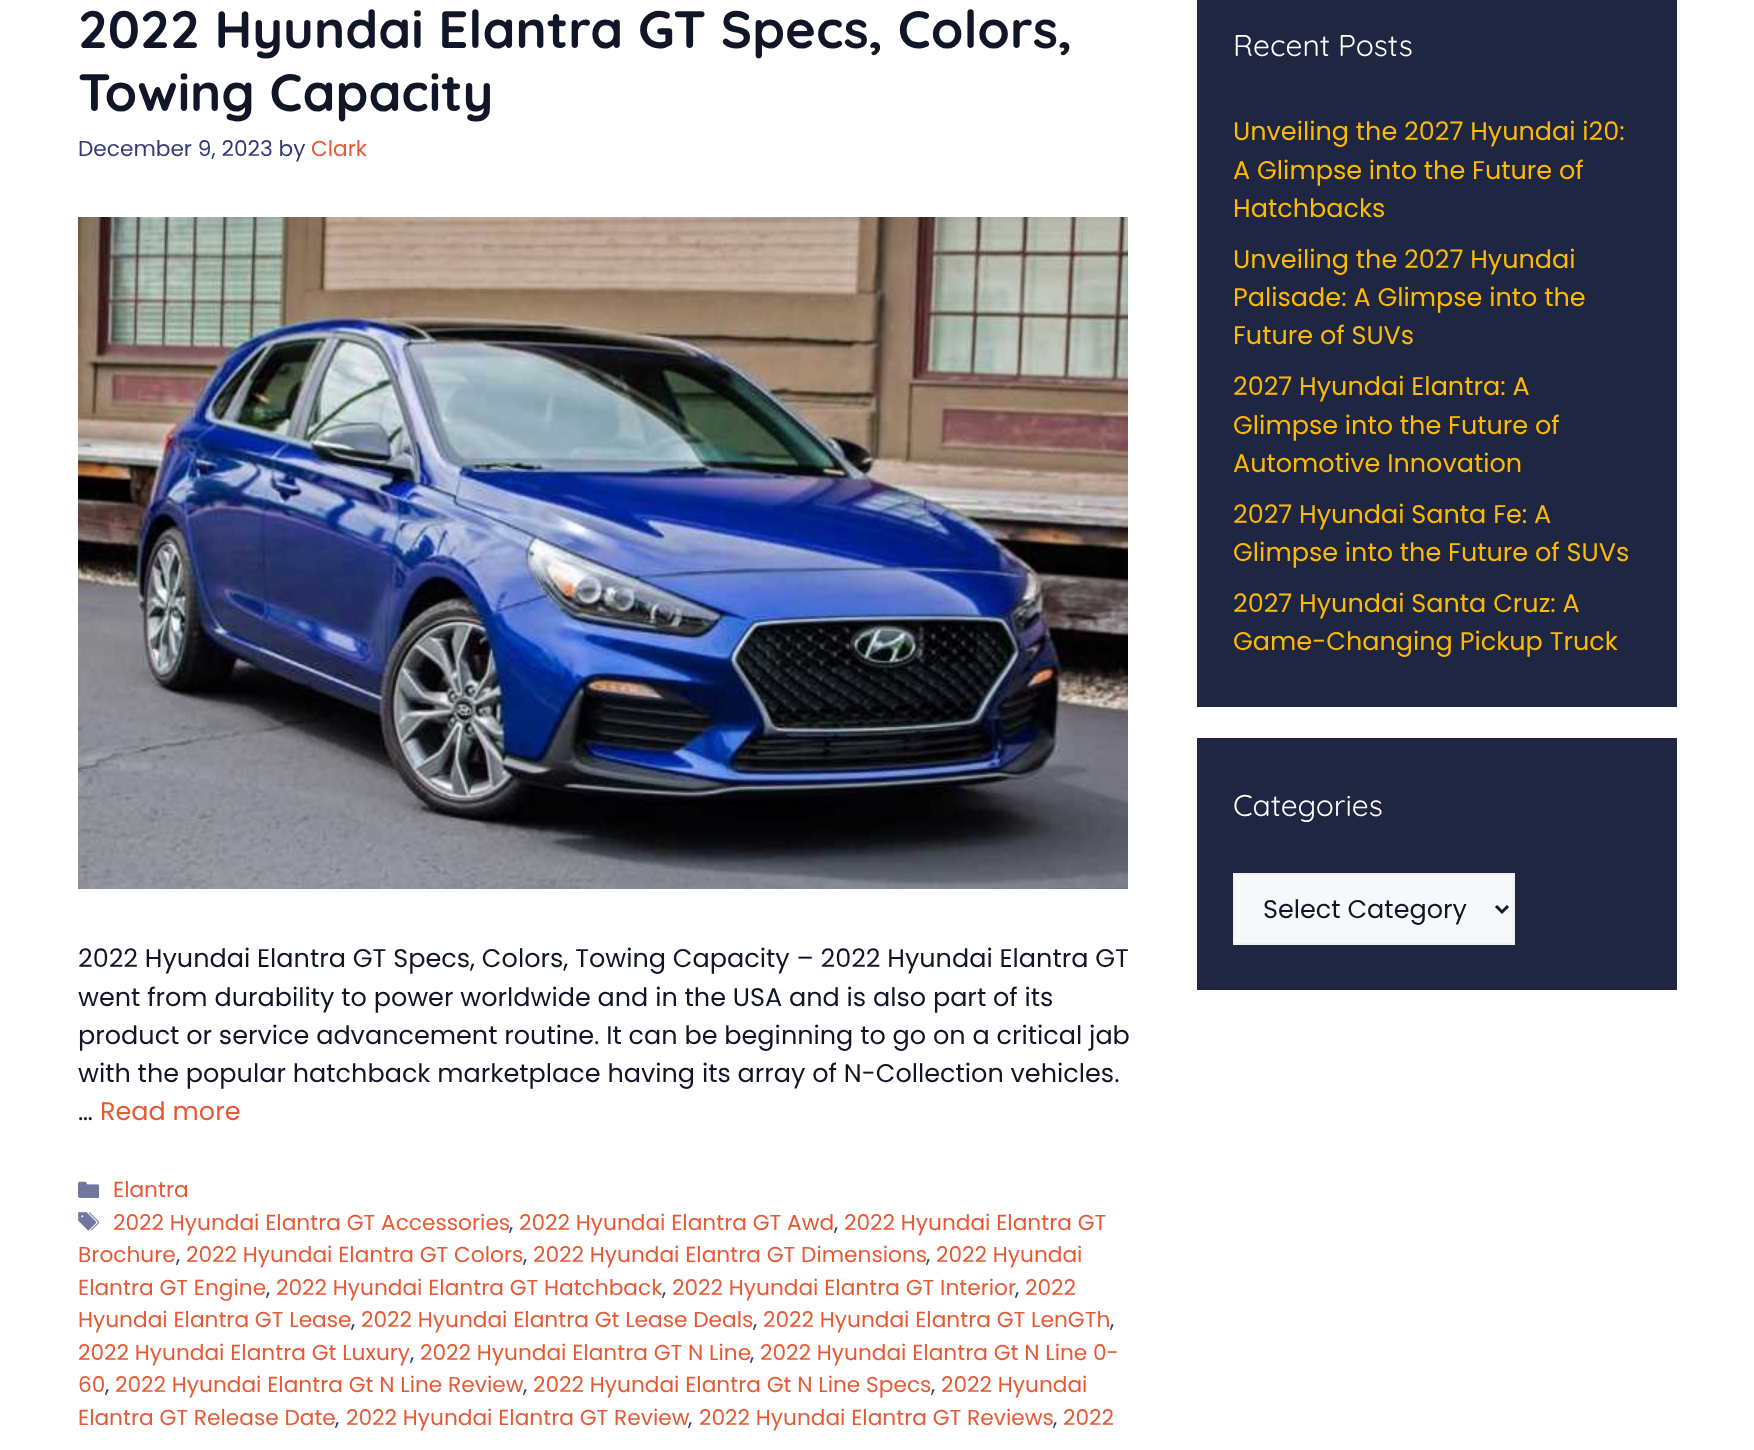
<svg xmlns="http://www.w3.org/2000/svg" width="1754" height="1450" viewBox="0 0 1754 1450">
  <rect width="100%" height="100%" fill="rgb(255,255,255)"/>
  <g font-family="Quicksand" font-size="52.5" font-weight="bold" fill="rgb(16,21,40)">
    <text>
      <tspan x="78" y="48">2022 Hyundai Elantra GT Specs, Colors,</tspan>
      <tspan x="78" y="111">Towing Capacity</tspan>
    </text>
  </g>
  <text x="78" y="156" font-family="Poppins" font-size="21.7" fill="rgb(49,59,119)">December 9, 2023 by</text>
  <text x="311" y="156" font-family="Poppins" font-size="21.7" fill="rgb(229,89,52)">Clark</text>
  <image x="78" y="217" width="1050" height="672" href="pic1.png"/>
  <g font-family="Poppins" font-size="25.5" fill="rgb(16,21,40)">
    <text>
      <tspan x="78" y="967">2022 Hyundai Elantra GT Specs, Colors, Towing Capacity – 2022 Hyundai Elantra GT</tspan>
      <tspan x="78" y="1006">went from durability to power worldwide and in the USA and is also part of its</tspan>
      <tspan x="78" y="1044">product or service advancement routine. It can be beginning to go on a critical jab</tspan>
      <tspan x="78" y="1082">with the popular hatchback marketplace having its array of N-Collection vehicles.</tspan>
      <tspan x="78" y="1120">…</tspan>
    </text>
  </g>
  <text x="100" y="1120" font-family="Poppins" font-size="25.5" fill="rgb(229,89,52)">Read more</text>
  <image x="78" y="1181" width="21" height="17" href="pic2.png"/>
  <text x="113" y="1197" font-family="Poppins" font-size="21.7" fill="rgb(229,89,52)">Elantra</text>
  <image x="78" y="1212" width="21" height="19" href="pic3.png"/>
  <text x="113" y="1230" font-family="Poppins" font-size="21.7" fill="rgb(229,89,52)">2022 Hyundai Elantra GT Accessories</text>
  <text x="509" y="1230" font-family="Poppins" font-size="21.7" fill="rgb(49,59,119)">,</text>
  <text x="519" y="1230" font-family="Poppins" font-size="21.7" fill="rgb(229,89,52)">2022 Hyundai Elantra GT Awd</text>
  <text x="834" y="1230" font-family="Poppins" font-size="21.7" fill="rgb(49,59,119)">,</text>
  <g font-family="Poppins" font-size="21.7" fill="rgb(229,89,52)">
    <text x="844" y="1230">2022 Hyundai Elantra GT</text>
    <text x="78" y="1262">Brochure</text>
  </g>
  <text x="176" y="1262" font-family="Poppins" font-size="21.7" fill="rgb(49,59,119)">,</text>
  <text x="186" y="1262" font-family="Poppins" font-size="21.7" fill="rgb(229,89,52)">2022 Hyundai Elantra GT Colors</text>
  <text x="523" y="1262" font-family="Poppins" font-size="21.7" fill="rgb(49,59,119)">,</text>
  <text x="533" y="1262" font-family="Poppins" font-size="21.7" fill="rgb(229,89,52)">2022 Hyundai Elantra GT Dimensions</text>
  <text x="926" y="1262" font-family="Poppins" font-size="21.7" fill="rgb(49,59,119)">,</text>
  <g font-family="Poppins" font-size="21.7" fill="rgb(229,89,52)">
    <text x="936" y="1262">2022 Hyundai</text>
    <text x="78" y="1295">Elantra GT Engine</text>
  </g>
  <text x="266" y="1295" font-family="Poppins" font-size="21.7" fill="rgb(49,59,119)">,</text>
  <text x="276" y="1295" font-family="Poppins" font-size="21.7" fill="rgb(229,89,52)">2022 Hyundai Elantra GT Hatchback</text>
  <text x="662" y="1295" font-family="Poppins" font-size="21.7" fill="rgb(49,59,119)">,</text>
  <text x="672" y="1295" font-family="Poppins" font-size="21.7" fill="rgb(229,89,52)">2022 Hyundai Elantra GT Interior</text>
  <text x="1015" y="1295" font-family="Poppins" font-size="21.7" fill="rgb(49,59,119)">,</text>
  <g font-family="Poppins" font-size="21.7" fill="rgb(229,89,52)">
    <text x="1025" y="1295">2022</text>
    <text x="78" y="1327">Hyundai Elantra GT Lease</text>
  </g>
  <text x="351" y="1327" font-family="Poppins" font-size="21.7" fill="rgb(49,59,119)">,</text>
  <text x="361" y="1327" font-family="Poppins" font-size="21.7" fill="rgb(229,89,52)">2022 Hyundai Elantra Gt Lease Deals</text>
  <text x="753" y="1327" font-family="Poppins" font-size="21.7" fill="rgb(49,59,119)">,</text>
  <text x="763" y="1327" font-family="Poppins" font-size="21.7" fill="rgb(229,89,52)">2022 Hyundai Elantra GT LenGTh</text>
  <text x="1110" y="1327" font-family="Poppins" font-size="21.7" fill="rgb(49,59,119)">,</text>
  <text x="78" y="1360" font-family="Poppins" font-size="21.7" fill="rgb(229,89,52)">2022 Hyundai Elantra Gt Luxury</text>
  <text x="410" y="1360" font-family="Poppins" font-size="21.7" fill="rgb(49,59,119)">,</text>
  <text x="420" y="1360" font-family="Poppins" font-size="21.7" fill="rgb(229,89,52)">2022 Hyundai Elantra GT N Line</text>
  <text x="750" y="1360" font-family="Poppins" font-size="21.7" fill="rgb(49,59,119)">,</text>
  <g font-family="Poppins" font-size="21.7" fill="rgb(229,89,52)">
    <text x="760" y="1360">2022 Hyundai Elantra Gt N Line 0-</text>
    <text x="78" y="1392">60</text>
  </g>
  <text x="105" y="1392" font-family="Poppins" font-size="21.7" fill="rgb(49,59,119)">,</text>
  <text x="115" y="1392" font-family="Poppins" font-size="21.7" fill="rgb(229,89,52)">2022 Hyundai Elantra Gt N Line Review</text>
  <text x="523" y="1392" font-family="Poppins" font-size="21.7" fill="rgb(49,59,119)">,</text>
  <text x="533" y="1392" font-family="Poppins" font-size="21.7" fill="rgb(229,89,52)">2022 Hyundai Elantra Gt N Line Specs</text>
  <text x="931" y="1392" font-family="Poppins" font-size="21.7" fill="rgb(49,59,119)">,</text>
  <g font-family="Poppins" font-size="21.7" fill="rgb(229,89,52)">
    <text x="941" y="1392">2022 Hyundai</text>
    <text x="78" y="1425">Elantra GT Release Date</text>
  </g>
  <text x="335" y="1425" font-family="Poppins" font-size="21.7" fill="rgb(49,59,119)">,</text>
  <text x="346" y="1425" font-family="Poppins" font-size="21.7" fill="rgb(229,89,52)">2022 Hyundai Elantra GT Review</text>
  <text x="688" y="1425" font-family="Poppins" font-size="21.7" fill="rgb(49,59,119)">,</text>
  <text x="699" y="1425" font-family="Poppins" font-size="21.7" fill="rgb(229,89,52)">2022 Hyundai Elantra GT Reviews</text>
  <text x="1053" y="1425" font-family="Poppins" font-size="21.7" fill="rgb(49,59,119)">,</text>
  <text x="1063" y="1425" font-family="Poppins" font-size="21.7" fill="rgb(229,89,52)">2022</text>
  <rect x="1197" y="0" width="480" height="707" fill="rgb(31,38,65)"/>
  <text x="1233" y="56" font-family="Quicksand" font-size="30" fill="rgb(255,255,255)">Recent Posts</text>
  <g font-family="Poppins" font-size="25.5" fill="rgb(252,186,4)">
    <text>
      <tspan x="1233" y="140">Unveiling the 2027 Hyundai i20:</tspan>
      <tspan x="1233" y="179">A Glimpse into the Future of</tspan>
      <tspan x="1233" y="217">Hatchbacks</tspan>
    </text>
    <text>
      <tspan x="1233" y="268">Unveiling the 2027 Hyundai</tspan>
      <tspan x="1233" y="306">Palisade: A Glimpse into the</tspan>
      <tspan x="1233" y="344">Future of SUVs</tspan>
    </text>
    <text>
      <tspan x="1233" y="395">2027 Hyundai Elantra: A</tspan>
      <tspan x="1233" y="434">Glimpse into the Future of</tspan>
      <tspan x="1233" y="472">Automotive Innovation</tspan>
    </text>
    <text>
      <tspan x="1233" y="523">2027 Hyundai Santa Fe: A</tspan>
      <tspan x="1233" y="561">Glimpse into the Future of SUVs</tspan>
    </text>
    <text>
      <tspan x="1233" y="612">2027 Hyundai Santa Cruz: A</tspan>
      <tspan x="1233" y="650">Game-Changing Pickup Truck</tspan>
    </text>
  </g>
  <rect x="1197" y="738" width="480" height="252" fill="rgb(31,38,65)"/>
  <text x="1233" y="816" font-family="Quicksand" font-size="30" fill="rgb(255,255,255)">Categories</text>
  <rect x="1234" y="874" width="280" height="70" fill="rgb(247,248,249)" stroke="rgb(240,240,240)" stroke-width="2"/>
  <path d="M1496 906L1502 912L1508 906" fill="none" stroke="rgb(16,21,40)" stroke-width="3"/>
  <text x="1263" y="918" font-family="Poppins" font-size="25.5" fill="rgb(16,21,40)">Select Category</text>
</svg>
